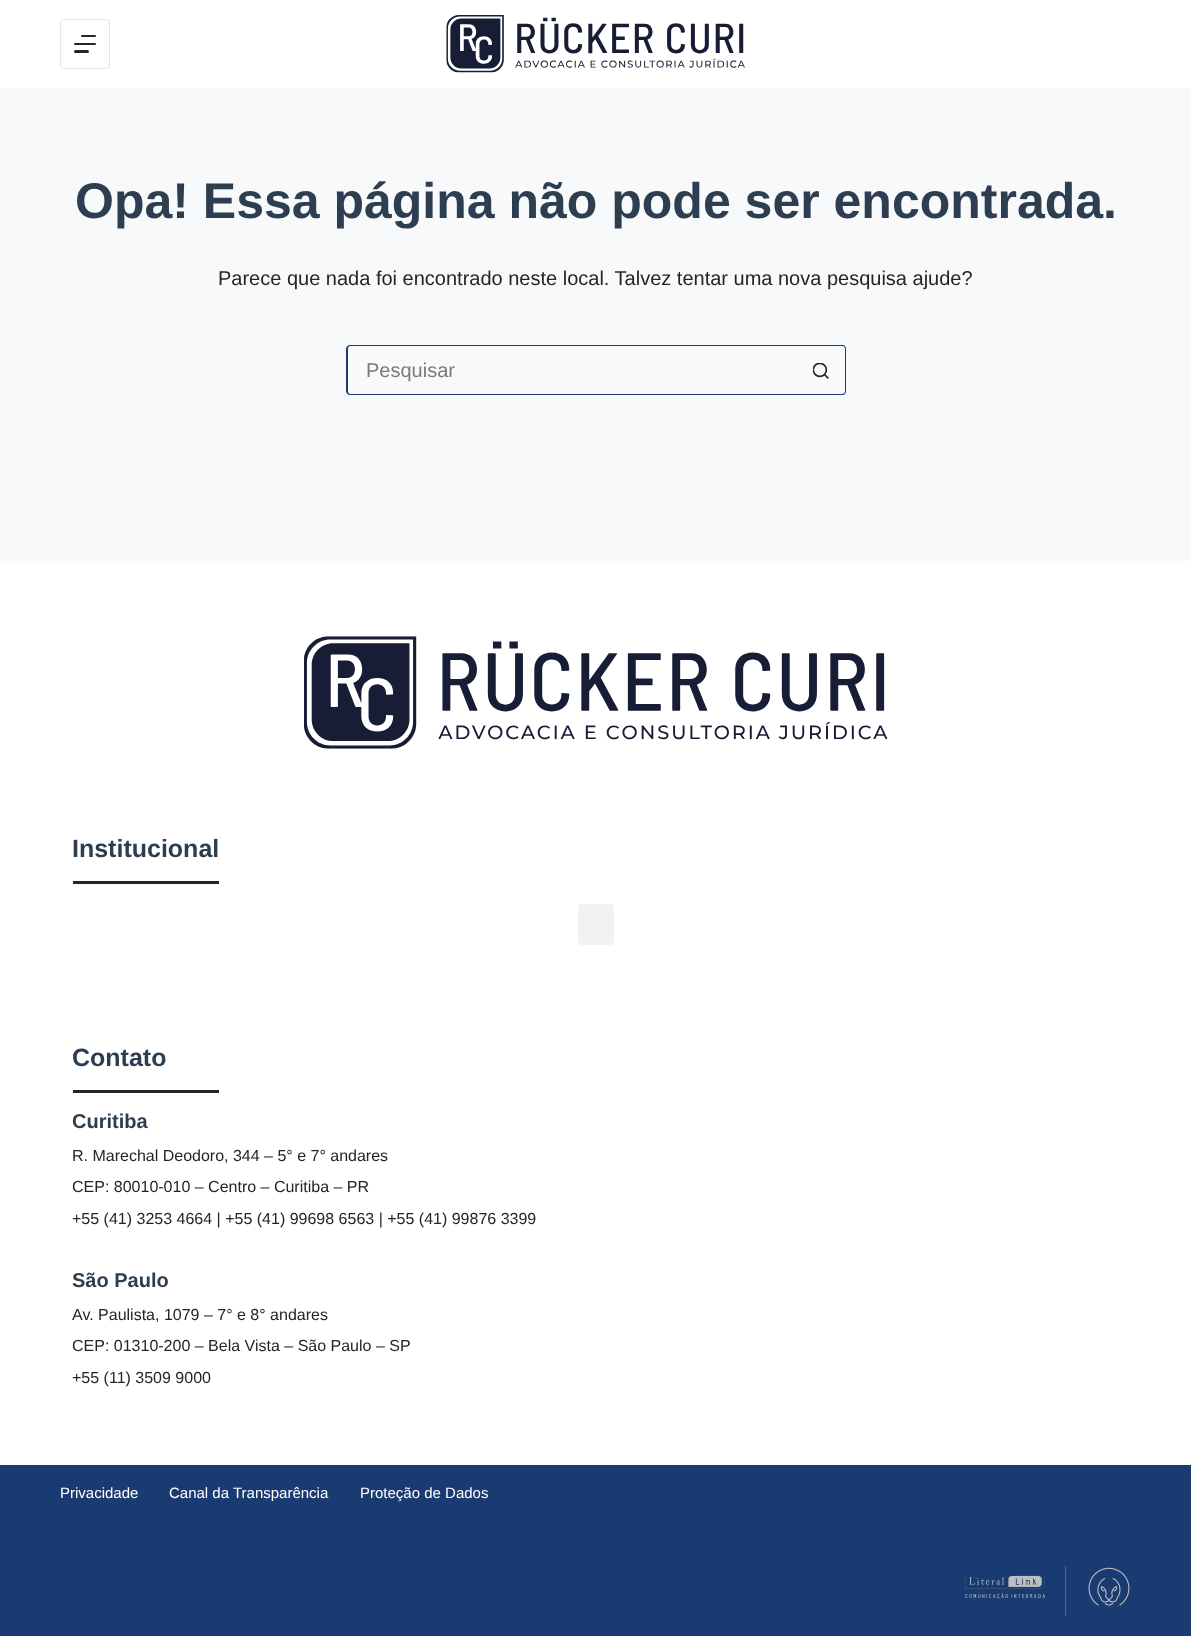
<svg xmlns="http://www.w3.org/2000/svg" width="1191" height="1636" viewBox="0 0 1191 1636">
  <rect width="100%" height="100%" fill="rgb(248,249,251)"/>
  <rect x="0" y="0" width="1191" height="88" fill="rgb(255,255,255)"/>
  <rect x="60.5" y="19.5" width="49" height="49" rx="3.5" fill="none" stroke="rgb(227,232,237)"/>
  <rect x="81" y="35" width="15" height="2" rx="1" fill="rgb(37,37,37)"/>
  <rect x="74" y="43" width="22" height="2" rx="1" fill="rgb(37,37,37)"/>
  <rect x="74" y="50" width="15" height="3" rx="1.5" fill="rgb(37,37,37)"/>
  <image x="446" y="15" width="299" height="58" href="pic1.png"/>
  <text x="75" y="218" font-family="Liberation Sans" font-size="50" font-weight="bold" fill="rgb(44,62,80)">Opa! Essa página não pode ser encontrada.</text>
  <text x="218" y="285" font-family="Liberation Sans" font-size="20" fill="rgb(37,37,37)">Parece que nada foi encontrado neste local. Talvez tentar uma nova pesquisa ajude?</text>
  <path d="M350 345H796V395H350C348 395 346 393 346 391V349C346 347 348 345 350 345ZM350 346H796V394H350C349 394 348 393 348 391V349C348 347 349 346 350 346Z" fill="rgb(26,59,113)" fill-rule="evenodd"/>
  <text x="366" y="377" font-family="Liberation Sans" font-size="20" fill="rgb(121,122,123)">Pesquisar</text>
  <path d="M796 345H842C845 345 846 347 846 349V391C846 393 845 395 842 395H796ZM796 346H842C844 346 845 347 845 349V391C845 393 844 394 842 394H796Z" fill="rgb(26,59,113)" fill-rule="evenodd"/>
  <image x="813" y="363" width="16" height="16" href="pic2.png"/>
  <rect x="0" y="561" width="1191" height="904" fill="rgb(255,255,255)"/>
  <image x="304" y="636" width="584" height="113" href="pic3.png"/>
  <text x="72" y="857" font-family="Liberation Sans" font-size="25" font-weight="bold" fill="rgb(44,62,80)">Institucional</text>
  <rect x="73" y="881" width="146" height="3" fill="rgb(37,37,37)"/>
  <rect x="578" y="904" width="36" height="41" rx="4" fill="rgb(242,242,242)"/>
  <text x="72" y="1066" font-family="Liberation Sans" font-size="25" font-weight="bold" fill="rgb(44,62,80)">Contato</text>
  <rect x="73" y="1090" width="146" height="3" fill="rgb(37,37,37)"/>
  <text x="72" y="1128" font-family="Liberation Sans" font-size="20" font-weight="bold" fill="rgb(44,62,80)">Curitiba</text>
  <g font-family="Liberation Sans" font-size="16" fill="rgb(37,37,37)">
    <text>
      <tspan x="72" y="1161">R. Marechal Deodoro, 344 – 5° e 7° andares</tspan>
      <tspan x="72" y="1192">CEP: 80010-010 – Centro – Curitiba – PR</tspan>
    </text>
    <text x="72" y="1224">+55 (41) 3253 4664 | +55 (41) 99698 6563 | +55 (41) 99876 3399</text>
  </g>
  <text x="72" y="1287" font-family="Liberation Sans" font-size="20" font-weight="bold" fill="rgb(44,62,80)">São Paulo</text>
  <g font-family="Liberation Sans" font-size="16" fill="rgb(37,37,37)">
    <text>
      <tspan x="72" y="1320">Av. Paulista, 1079 – 7° e 8° andares</tspan>
      <tspan x="72" y="1351">CEP: 01310-200 – Bela Vista – São Paulo – SP</tspan>
    </text>
    <text x="72" y="1383">+55 (11) 3509 9000</text>
  </g>
  <rect x="0" y="1465" width="1191" height="171" fill="rgb(26,59,113)"/>
  <g font-family="Liberation Sans" font-size="15" fill="rgb(255,255,255)">
    <text x="60" y="1498">Privacidade</text>
    <text x="169" y="1498">Canal da Transparência</text>
    <text x="360" y="1498">Proteção de Dados</text>
  </g>
  <image x="965" y="1574" width="80" height="25" href="pic4.png"/>
  <rect x="1065" y="1566" width="1" height="50" fill="rgb(79,102,139)"/>
  <image x="1088" y="1567" width="42" height="39" href="pic5.png"/>
</svg>
